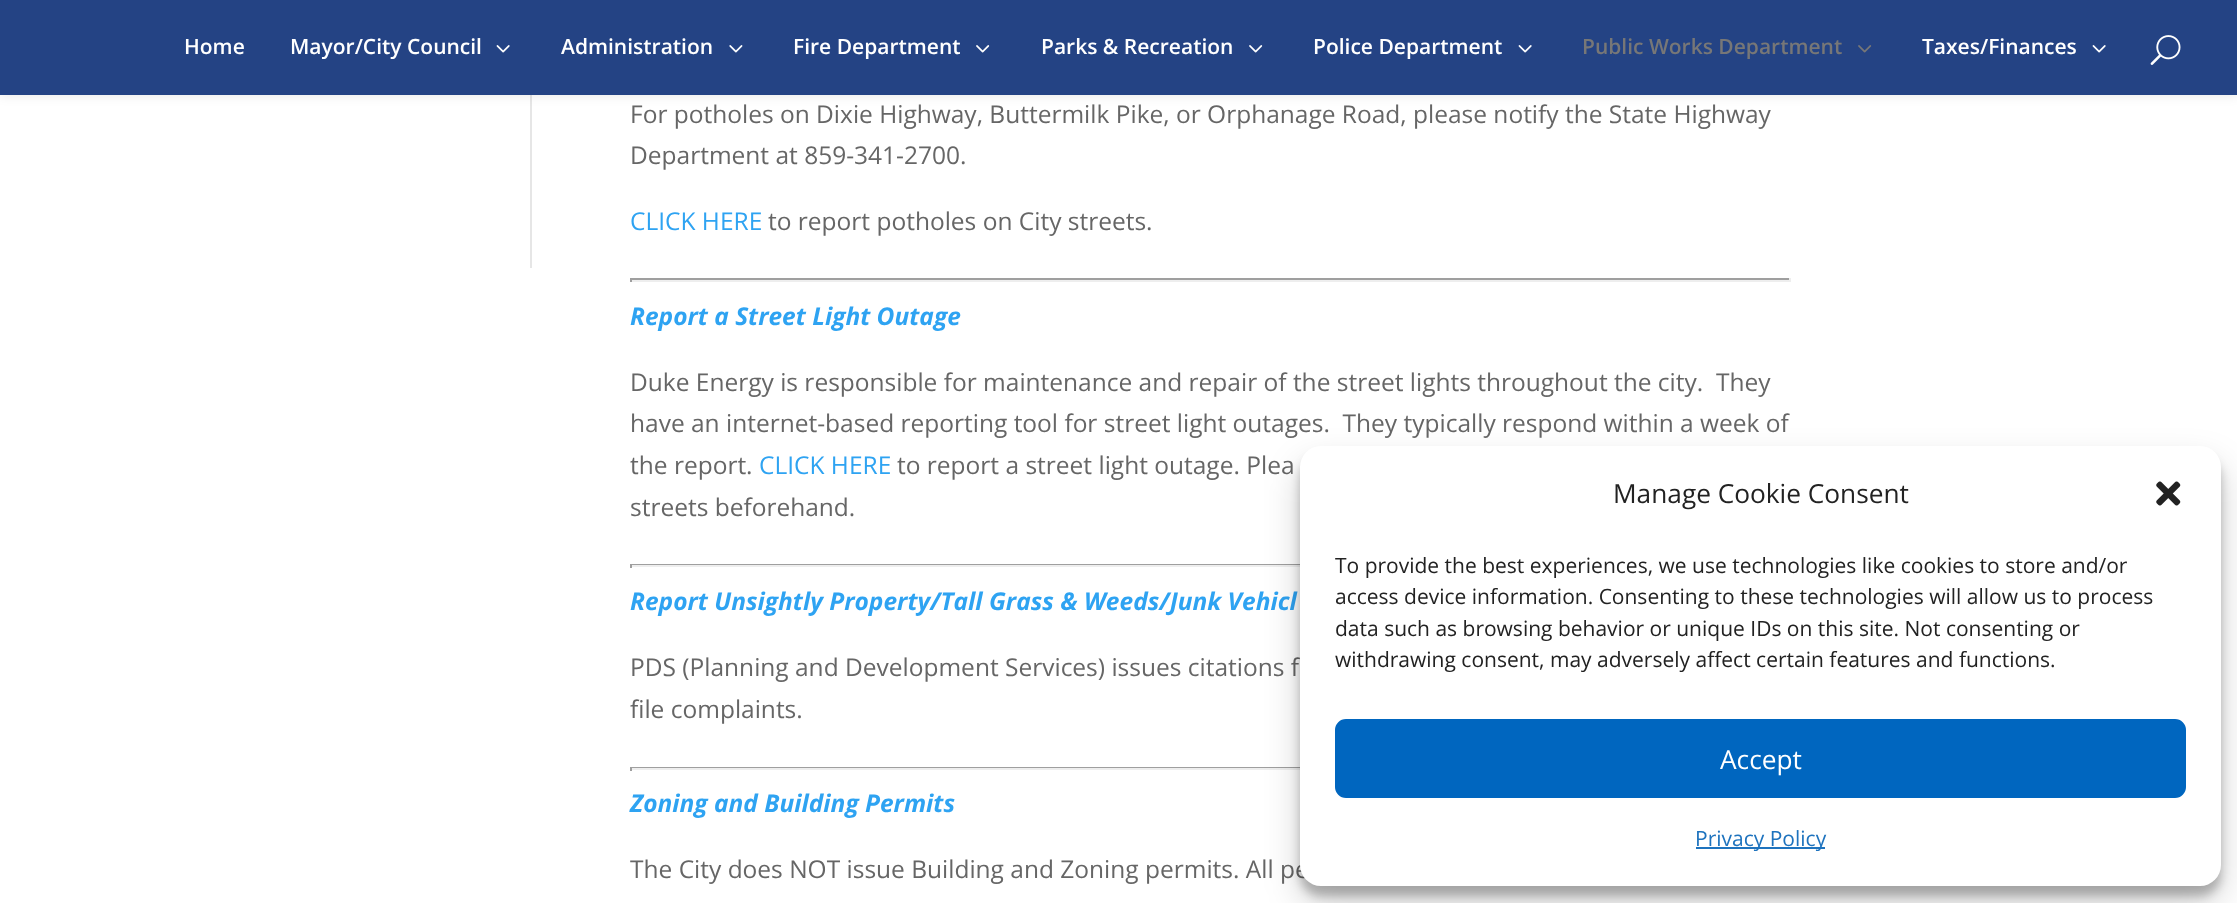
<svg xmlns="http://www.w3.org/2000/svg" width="2237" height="903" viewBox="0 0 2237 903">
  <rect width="100%" height="100%" fill="rgb(255,255,255)"/>
  <rect x="530" y="95" width="2" height="173" fill="rgb(230,230,230)"/>
  <rect x="0" y="0" width="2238" height="95" fill="rgba(0,0,0,0.1)" filter="blur(6px)"/>
  <rect x="0" y="0" width="2237" height="95" fill="rgb(36,67,132)"/>
  <g font-family="Open Sans" font-size="21" font-weight="600" fill="rgb(255,255,255)">
    <text x="184" y="54">Home</text>
    <text x="290" y="54">Mayor/City Council</text>
  </g>
  <image x="496" y="45" width="14" height="8" href="pic1.png"/>
  <text x="561" y="54" font-family="Open Sans" font-size="21" font-weight="600" fill="rgb(255,255,255)">Administration</text>
  <image x="729" y="45" width="14" height="8" href="pic2.png"/>
  <text x="793" y="54" font-family="Open Sans" font-size="21" font-weight="600" fill="rgb(255,255,255)">Fire Department</text>
  <image x="976" y="45" width="14" height="8" href="pic3.png"/>
  <text x="1041" y="54" font-family="Open Sans" font-size="21" font-weight="600" fill="rgb(255,255,255)">Parks &amp; Recreation</text>
  <image x="1249" y="45" width="14" height="8" href="pic3.png"/>
  <text x="1313" y="54" font-family="Open Sans" font-size="21" font-weight="600" fill="rgb(255,255,255)">Police Department</text>
  <image x="1518" y="45" width="14" height="8" href="pic1.png"/>
  <text x="1582" y="54" font-family="Open Sans" font-size="21" font-weight="600" fill="rgb(119,119,119)">Public Works Department</text>
  <image x="1858" y="45" width="14" height="8" href="pic4.png"/>
  <text x="1922" y="54" font-family="Open Sans" font-size="21" font-weight="600" fill="rgb(255,255,255)">Taxes/Finances</text>
  <image x="2092" y="45" width="14" height="8" href="pic1.png"/>
  <image x="2150" y="35" width="31" height="30" href="pic5.png"/>
  <g font-family="Open Sans" font-size="24.5" fill="rgb(102,102,102)">
    <text>
      <tspan x="630" y="123">For potholes on Dixie Highway, Buttermilk Pike, or Orphanage Road, please notify the State Highway</tspan>
      <tspan x="630" y="164">Department at 859-341-2700.</tspan>
    </text>
  </g>
  <text x="630" y="230" font-family="Open Sans" font-size="24.5" fill="rgb(46,163,242)">CLICK HERE</text>
  <text x="768" y="230" font-family="Open Sans" font-size="24.5" fill="rgb(102,102,102)">to report potholes on City streets.</text>
  <rect x="630" y="278" width="1160" height="2" fill="rgb(159,159,159)"/>
  <rect x="1789" y="278" width="2" height="4" fill="rgb(238,238,238)"/>
  <rect x="630" y="280" width="1160" height="2" fill="rgb(238,238,238)"/>
  <rect x="630" y="278" width="2" height="4" fill="rgb(159,159,159)"/>
  <text x="630" y="325" font-family="Open Sans" font-size="24.5" font-weight="bold" font-style="italic" fill="rgb(46,163,242)">Report a Street Light Outage</text>
  <g font-family="Open Sans" font-size="24.5" fill="rgb(102,102,102)">
    <text xml:space="preserve"><tspan x="630" y="391">Duke Energy is responsible for maintenance and repair of the street lights throughout the city.  They</tspan><tspan x="630" y="432">have an internet-based reporting tool for street light outages.  They typically respond within a week of</tspan><tspan x="630" y="474">the report.</tspan></text>
  </g>
  <text x="759" y="474" font-family="Open Sans" font-size="24.5" fill="rgb(46,163,242)">CLICK HERE</text>
  <g font-family="Open Sans" font-size="24.5" fill="rgb(102,102,102)">
    <text x="897" y="474">to report a street light outage. Plea</text>
    <text x="630" y="516">streets beforehand.</text>
  </g>
  <rect x="630" y="564" width="670" height="1" fill="rgb(159,159,159)"/>
  <rect x="630" y="565" width="670" height="2" fill="rgb(238,238,238)"/>
  <rect x="630" y="564" width="2" height="4" fill="rgb(159,159,159)"/>
  <text x="630" y="610" font-family="Open Sans" font-size="24.5" font-weight="bold" font-style="italic" fill="rgb(46,163,242)">Report Unsightly Property/Tall Grass &amp; Weeds/Junk Vehicl</text>
  <g font-family="Open Sans" font-size="24.5" fill="rgb(102,102,102)">
    <text>
      <tspan x="630" y="676">PDS (Planning and Development Services) issues citations f</tspan>
      <tspan x="630" y="718">file complaints.</tspan>
    </text>
  </g>
  <rect x="630" y="767" width="670" height="1" fill="rgb(159,159,159)"/>
  <rect x="630" y="768" width="670" height="2" fill="rgb(238,238,238)"/>
  <rect x="630" y="767" width="2" height="4" fill="rgb(159,159,159)"/>
  <text x="630" y="812" font-family="Open Sans" font-size="24.5" font-weight="bold" font-style="italic" fill="rgb(46,163,242)">Zoning and Building Permits</text>
  <text x="630" y="878" font-family="Open Sans" font-size="24.5" fill="rgb(102,102,102)">The City does NOT issue Building and Zoning permits. All pe</text>
  <rect x="1300" y="457" width="921" height="439" rx="21" fill="rgba(0,0,0,0.23)" filter="blur(5px)"/>
  <rect x="1300" y="464" width="921" height="439" rx="21" fill="rgba(0,0,0,0.19)" filter="blur(17.5px)"/>
  <rect x="1300" y="446" width="921" height="440" rx="21" fill="rgb(255,255,255)"/>
  <text x="1613" y="503" font-family="Open Sans" font-size="26.25" fill="rgb(34,34,34)">Manage Cookie Consent</text>
  <image x="2156" y="481" width="25" height="25" href="pic6.png"/>
  <g font-family="Open Sans" font-size="21" fill="rgb(34,34,34)">
    <text>
      <tspan x="1335" y="573">To provide the best experiences, we use technologies like cookies to store and/or</tspan>
      <tspan x="1335" y="604">access device information. Consenting to these technologies will allow us to process</tspan>
      <tspan x="1335" y="636">data such as browsing behavior or unique IDs on this site. Not consenting or</tspan>
      <tspan x="1335" y="667">withdrawing consent, may adversely affect certain features and functions.</tspan>
    </text>
  </g>
  <rect x="1336" y="720" width="849" height="77" rx="10" fill="rgb(0,102,191)" stroke="rgb(0,102,191)" stroke-width="2"/>
  <text x="1720" y="769" font-family="Open Sans" font-size="26.25" fill="rgb(255,255,255)">Accept</text>
  <rect x="1696" y="847" width="129" height="2" fill="rgb(30,115,190)"/>
  <text x="1695" y="846" font-family="Open Sans" font-size="21" fill="rgb(30,115,190)">Privacy Policy</text>
</svg>
